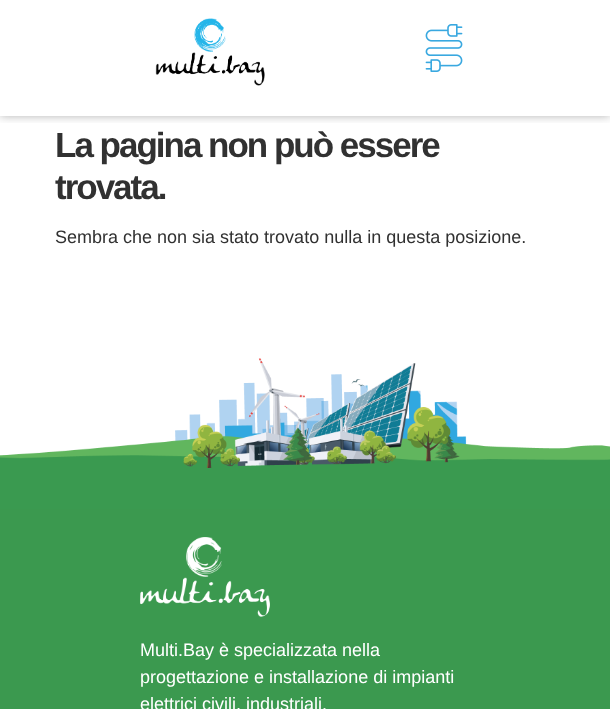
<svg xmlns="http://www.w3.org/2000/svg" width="610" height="709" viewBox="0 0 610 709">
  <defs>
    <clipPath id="clip1"><rect x="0" y="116" width="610" height="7"/></clipPath>
  </defs>
  <rect width="100%" height="100%" fill="rgb(255,255,255)"/>
  <g clip-path="url(#clip1)">
    <rect x="0" y="0" width="610" height="116" fill="rgba(0,0,0,0.3)" filter="blur(5px)"/>
  </g>
  <image x="155" y="18" width="110" height="68" href="pic1.png"/>
  <image x="425" y="24" width="38" height="48" href="pic2.png"/>
  <g font-family="Liberation Sans" font-size="35" font-weight="bold" letter-spacing="-2" fill="rgb(49,49,49)">
    <text>
      <tspan x="55" y="157">La pagina non può essere</tspan>
      <tspan x="55" y="199">trovata.</tspan>
    </text>
  </g>
  <text x="55" y="243" font-family="Liberation Sans" font-size="18" fill="rgb(49,49,49)">Sembra che non sia stato trovato nulla in questa posizione.</text>
  <image x="0" y="358" width="610" height="151" href="pic3.png"/>
  <rect x="0" y="509" width="610" height="200" fill="rgb(59,153,79)"/>
  <image x="140" y="537" width="130" height="80" href="pic4.png"/>
  <g font-family="Liberation Sans" font-size="18" fill="rgb(255,255,255)">
    <text>
      <tspan x="140" y="656">Multi.Bay è specializzata nella</tspan>
      <tspan x="140" y="683">progettazione e installazione di impianti</tspan>
      <tspan x="140" y="710">elettrici civili, industriali.</tspan>
    </text>
  </g>
</svg>
